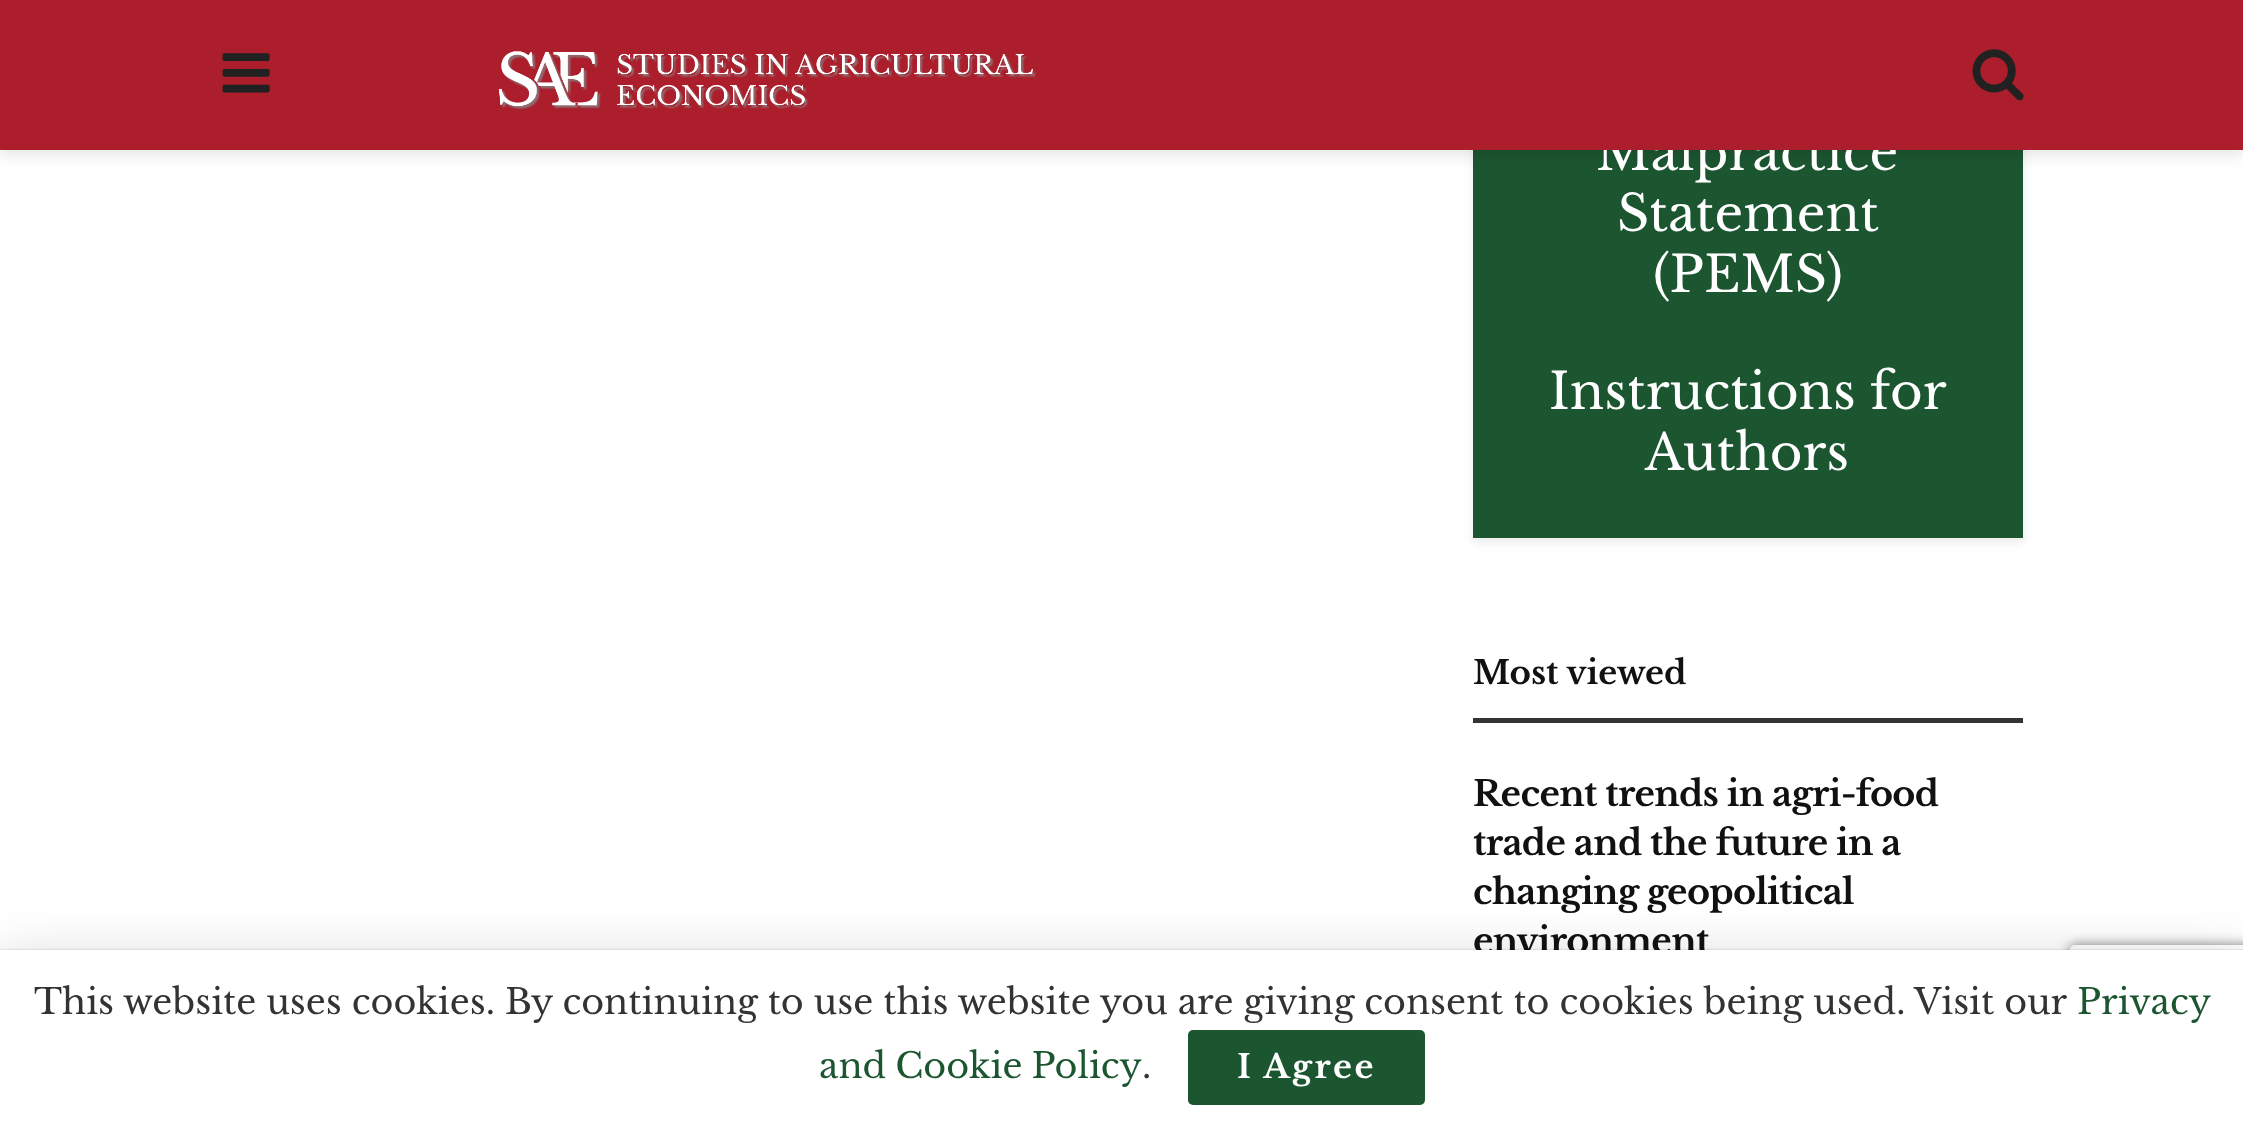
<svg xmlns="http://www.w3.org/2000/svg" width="2243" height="1128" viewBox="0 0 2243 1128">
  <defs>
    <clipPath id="clip1"><path d="M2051 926H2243V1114H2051ZM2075 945H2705C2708 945 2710 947 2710 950V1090C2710 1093 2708 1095 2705 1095H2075C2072 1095 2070 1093 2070 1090V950C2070 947 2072 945 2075 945Z" clip-rule="evenodd"/></clipPath>
  </defs>
  <rect width="100%" height="100%" fill="rgb(255,255,255)"/>
  <rect x="1473" y="-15" width="550" height="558" fill="rgba(0,0,0,0.08)" filter="blur(5px)"/>
  <rect x="1473" y="150" width="550" height="388" fill="rgb(28,86,49)"/>
  <rect x="0" y="5" width="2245" height="150" fill="rgba(0,0,0,0.1)" filter="blur(7.5px)"/>
  <text x="1596" y="170" font-family="Libre Baskerville" font-size="50" fill="rgb(255,255,255)">Malpractice</text>
  <rect x="0" y="0" width="2243" height="150" fill="rgb(172,30,44)"/>
  <image x="222" y="53" width="48" height="40" href="pic1.png"/>
  <image x="499" y="51" width="537" height="59" href="pic2.png"/>
  <image x="1972" y="49" width="52" height="52" href="pic3.png"/>
  <g font-family="Libre Baskerville" font-size="50" fill="rgb(255,255,255)">
    <text x="1617" y="231">Statement</text>
    <text x="1653" y="292">(PEMS)</text>
    <text x="1549" y="409">Instructions for</text>
    <text x="1645" y="470">Authors</text>
  </g>
  <rect x="1473" y="718" width="550" height="5" fill="rgb(51,51,51)"/>
  <text x="1473" y="684" font-family="Libre Baskerville" font-size="32.5" font-weight="bold" fill="rgb(17,17,17)">Most viewed</text>
  <g font-family="Libre Baskerville" font-size="35" font-weight="bold" letter-spacing="-0.7" fill="rgb(17,17,17)">
    <text>
      <tspan x="1473" y="806">Recent trends in agri-food</tspan>
      <tspan x="1473" y="855">trade and the future in a</tspan>
      <tspan x="1473" y="904">changing geopolitical</tspan>
      <tspan x="1473" y="953">environment</tspan>
    </text>
  </g>
  <g clip-path="url(#clip1)">
    <rect x="2070" y="945" width="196" height="150" rx="5" fill="rgb(128,128,128)" filter="blur(6px)"/>
  </g>
  <rect x="0" y="955" width="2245" height="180" fill="rgba(0,0,0,0.15)" filter="blur(25px)"/>
  <rect x="0" y="950" width="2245" height="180" fill="rgba(0,0,0,0.2)" filter="blur(1px)"/>
  <rect x="0" y="950" width="2243" height="178" fill="rgb(255,255,255)"/>
  <text x="34" y="1014" font-family="Libre Baskerville" font-size="35" fill="rgb(51,51,51)">This website uses cookies. By continuing to use this website you are giving consent to cookies being used. Visit our</text>
  <g font-family="Libre Baskerville" font-size="35" fill="rgb(28,86,49)">
    <text x="2077" y="1014">Privacy</text>
    <text x="819" y="1078" word-spacing="-1">and Cookie Policy</text>
  </g>
  <text x="1142" y="1078" font-family="Libre Baskerville" font-size="35" fill="rgb(51,51,51)">.</text>
  <rect x="1188" y="1030" width="237" height="75" rx="5" fill="rgb(28,86,49)"/>
  <text x="1237" y="1078" font-family="Libre Baskerville" font-size="32.5" font-weight="bold" letter-spacing="2.5" fill="rgb(255,255,255)">I Agree</text>
</svg>
